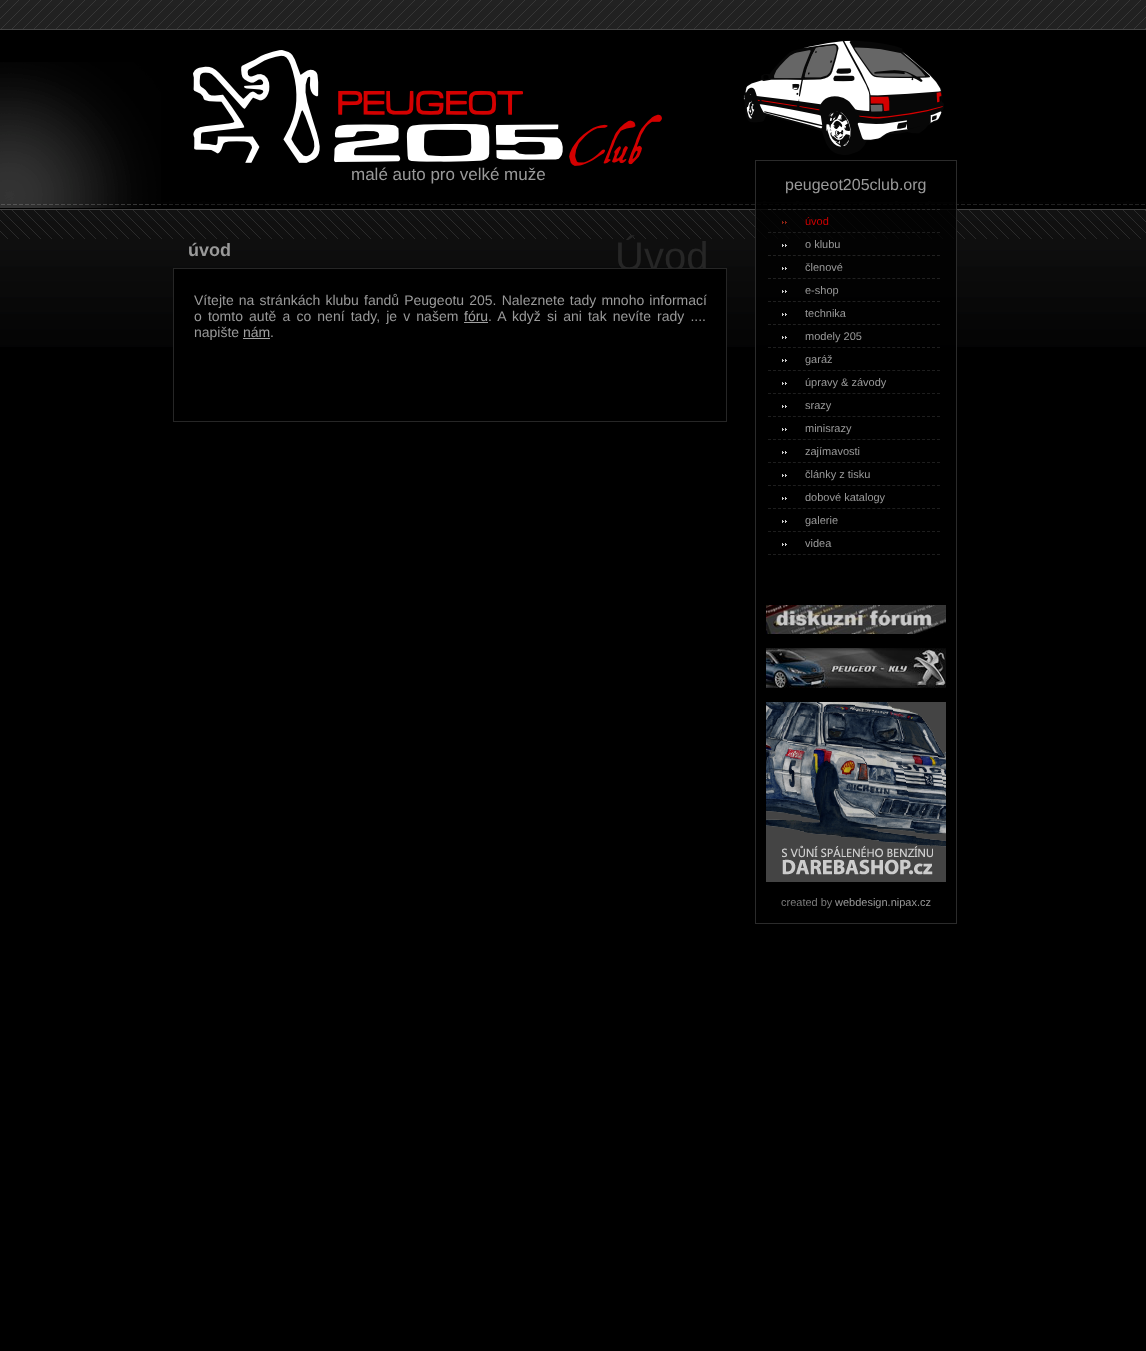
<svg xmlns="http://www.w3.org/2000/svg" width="1146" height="1351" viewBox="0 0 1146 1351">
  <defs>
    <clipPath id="clip1"><rect x="188" y="234" width="520" height="34"/></clipPath>
  </defs>
  <rect width="100%" height="100%" fill="rgb(0,0,0)"/>
  <image x="0" y="0" width="1146" height="347" href="pic1.png"/>
  <image x="0" y="62" width="161" height="146" href="pic2.png"/>
  <image x="193" y="50" width="469" height="116" href="pic3.png"/>
  <image x="743" y="40" width="201" height="115" href="pic4.png"/>
  <text x="351" y="180" font-family="Liberation Sans" font-size="17" fill="rgb(153,153,153)">malé auto pro velké muže</text>
  <text x="188" y="256" font-family="Liberation Sans" font-size="18" font-weight="bold" fill="rgb(153,153,153)">úvod</text>
  <g clip-path="url(#clip1)">
    <text x="615" y="270" font-family="Liberation Sans" font-size="40" fill="rgb(38,38,38)">Úvod</text>
  </g>
  <rect x="755" y="204" width="202" height="143" fill="rgba(0,0,0,0.8)"/>
  <rect x="755.5" y="160.5" width="201" height="763" fill="none" stroke="rgba(54,54,54,0.8)"/>
  <text x="785" y="190" font-family="Liberation Sans" font-size="16" fill="rgb(153,153,153)">peugeot205club.org</text>
  <path d="M768 209.5H940" fill="none" stroke="rgb(44,44,44)" stroke-dasharray="3 1.97"/>
  <path d="M768 232.5H940" fill="none" stroke="rgba(38,38,38,0.8)" stroke-dasharray="3 1.97"/>
  <image x="782" y="221" width="5" height="3" href="pic5.png"/>
  <text x="805" y="225" font-family="Liberation Sans" font-size="11" fill="rgb(205,1,1)">úvod</text>
  <path d="M768 255.5H940" fill="none" stroke="rgb(33,33,33)" stroke-dasharray="3 1.97"/>
  <image x="782" y="244" width="5" height="3" href="pic6.png"/>
  <text x="805" y="248" font-family="Liberation Sans" font-size="11" fill="rgb(153,153,153)">o klubu</text>
  <path d="M768 278.5H940" fill="none" stroke="rgb(33,33,33)" stroke-dasharray="3 1.97"/>
  <image x="782" y="267" width="5" height="3" href="pic7.png"/>
  <text x="805" y="271" font-family="Liberation Sans" font-size="11" fill="rgb(153,153,153)">členové</text>
  <path d="M768 301.5H940" fill="none" stroke="rgb(32,32,32)" stroke-dasharray="3 1.97"/>
  <image x="782" y="290" width="5" height="3" href="pic7.png"/>
  <text x="805" y="294" font-family="Liberation Sans" font-size="11" fill="rgb(153,153,153)">e-shop</text>
  <path d="M768 324.5H940" fill="none" stroke="rgb(32,32,32)" stroke-dasharray="3 1.97"/>
  <image x="782" y="313" width="5" height="3" href="pic7.png"/>
  <text x="805" y="317" font-family="Liberation Sans" font-size="11" fill="rgb(153,153,153)">technika</text>
  <path d="M768 347.5H940" fill="none" stroke="rgb(30,30,30)" stroke-dasharray="3 1.97"/>
  <image x="782" y="336" width="5" height="3" href="pic7.png"/>
  <text x="805" y="340" font-family="Liberation Sans" font-size="11" fill="rgb(153,153,153)">modely 205</text>
  <path d="M768 370.5H940" fill="none" stroke="rgb(30,30,30)" stroke-dasharray="3 1.97"/>
  <image x="782" y="359" width="5" height="3" href="pic7.png"/>
  <text x="805" y="363" font-family="Liberation Sans" font-size="11" fill="rgb(153,153,153)">garáž</text>
  <path d="M768 393.5H940" fill="none" stroke="rgb(30,30,30)" stroke-dasharray="3 1.97"/>
  <image x="782" y="382" width="5" height="3" href="pic7.png"/>
  <text x="805" y="386" font-family="Liberation Sans" font-size="11" fill="rgb(153,153,153)">úpravy &amp; závody</text>
  <path d="M768 416.5H940" fill="none" stroke="rgb(30,30,30)" stroke-dasharray="3 1.97"/>
  <image x="782" y="405" width="5" height="3" href="pic7.png"/>
  <text x="805" y="409" font-family="Liberation Sans" font-size="11" fill="rgb(153,153,153)">srazy</text>
  <path d="M768 439.5H940" fill="none" stroke="rgb(30,30,30)" stroke-dasharray="3 1.97"/>
  <image x="782" y="428" width="5" height="3" href="pic7.png"/>
  <text x="805" y="432" font-family="Liberation Sans" font-size="11" fill="rgb(153,153,153)">minisrazy</text>
  <path d="M768 462.5H940" fill="none" stroke="rgb(30,30,30)" stroke-dasharray="3 1.97"/>
  <image x="782" y="451" width="5" height="3" href="pic7.png"/>
  <text x="805" y="455" font-family="Liberation Sans" font-size="11" fill="rgb(153,153,153)">zajímavosti</text>
  <path d="M768 485.5H940" fill="none" stroke="rgb(30,30,30)" stroke-dasharray="3 1.97"/>
  <image x="782" y="474" width="5" height="3" href="pic7.png"/>
  <text x="805" y="478" font-family="Liberation Sans" font-size="11" fill="rgb(153,153,153)">články z tisku</text>
  <path d="M768 508.5H940" fill="none" stroke="rgb(30,30,30)" stroke-dasharray="3 1.97"/>
  <image x="782" y="497" width="5" height="3" href="pic7.png"/>
  <text x="805" y="501" font-family="Liberation Sans" font-size="11" fill="rgb(153,153,153)">dobové katalogy</text>
  <path d="M768 531.5H940" fill="none" stroke="rgb(30,30,30)" stroke-dasharray="3 1.97"/>
  <image x="782" y="520" width="5" height="3" href="pic7.png"/>
  <text x="805" y="524" font-family="Liberation Sans" font-size="11" fill="rgb(153,153,153)">galerie</text>
  <path d="M768 554.5H940" fill="none" stroke="rgb(30,30,30)" stroke-dasharray="3 1.97"/>
  <image x="782" y="543" width="5" height="3" href="pic7.png"/>
  <text x="805" y="547" font-family="Liberation Sans" font-size="11" fill="rgb(153,153,153)">videa</text>
  <image x="766" y="605" width="180" height="29" href="pic8.png"/>
  <image x="766" y="648" width="180" height="40" href="pic9.png"/>
  <image x="766" y="702" width="180" height="180" href="pic10.png"/>
  <text x="781" y="906" font-family="Liberation Sans" font-size="11" fill="rgb(122,122,122)">created by</text>
  <text x="835" y="906" font-family="Liberation Sans" font-size="11" fill="rgb(153,153,153)">webdesign.nipax.cz</text>
  <rect x="174" y="269" width="552" height="78" fill="rgb(0,0,0)"/>
  <rect x="173.5" y="268.5" width="553" height="153" fill="none" stroke="rgb(38,38,38)"/>
  <g font-family="Liberation Sans" font-size="14" fill="rgb(153,153,153)">
    <text>
      <tspan x="194" y="305" word-spacing="1.25">Vítejte na stránkách klubu fandů Peugeotu 205. Naleznete tady mnoho informací</tspan>
      <tspan x="194" y="321" word-spacing="2.25">o tomto autě a co není tady, je v našem</tspan>
    </text>
  </g>
  <text x="464" y="321" font-family="Liberation Sans" font-size="14" fill="rgb(160,160,160)">fóru</text>
  <rect x="464" y="322" width="24" height="1" fill="rgb(160,160,160)"/>
  <g font-family="Liberation Sans" font-size="14" fill="rgb(153,153,153)">
    <text x="488" y="321" word-spacing="2.25">. A když si ani tak nevíte rady ....</text>
    <text x="194" y="337">napište</text>
  </g>
  <text x="243" y="337" font-family="Liberation Sans" font-size="14" fill="rgb(160,160,160)">nám</text>
  <rect x="243" y="338" width="27" height="1" fill="rgb(160,160,160)"/>
  <text x="270" y="337" font-family="Liberation Sans" font-size="14" fill="rgb(153,153,153)">.</text>
</svg>
